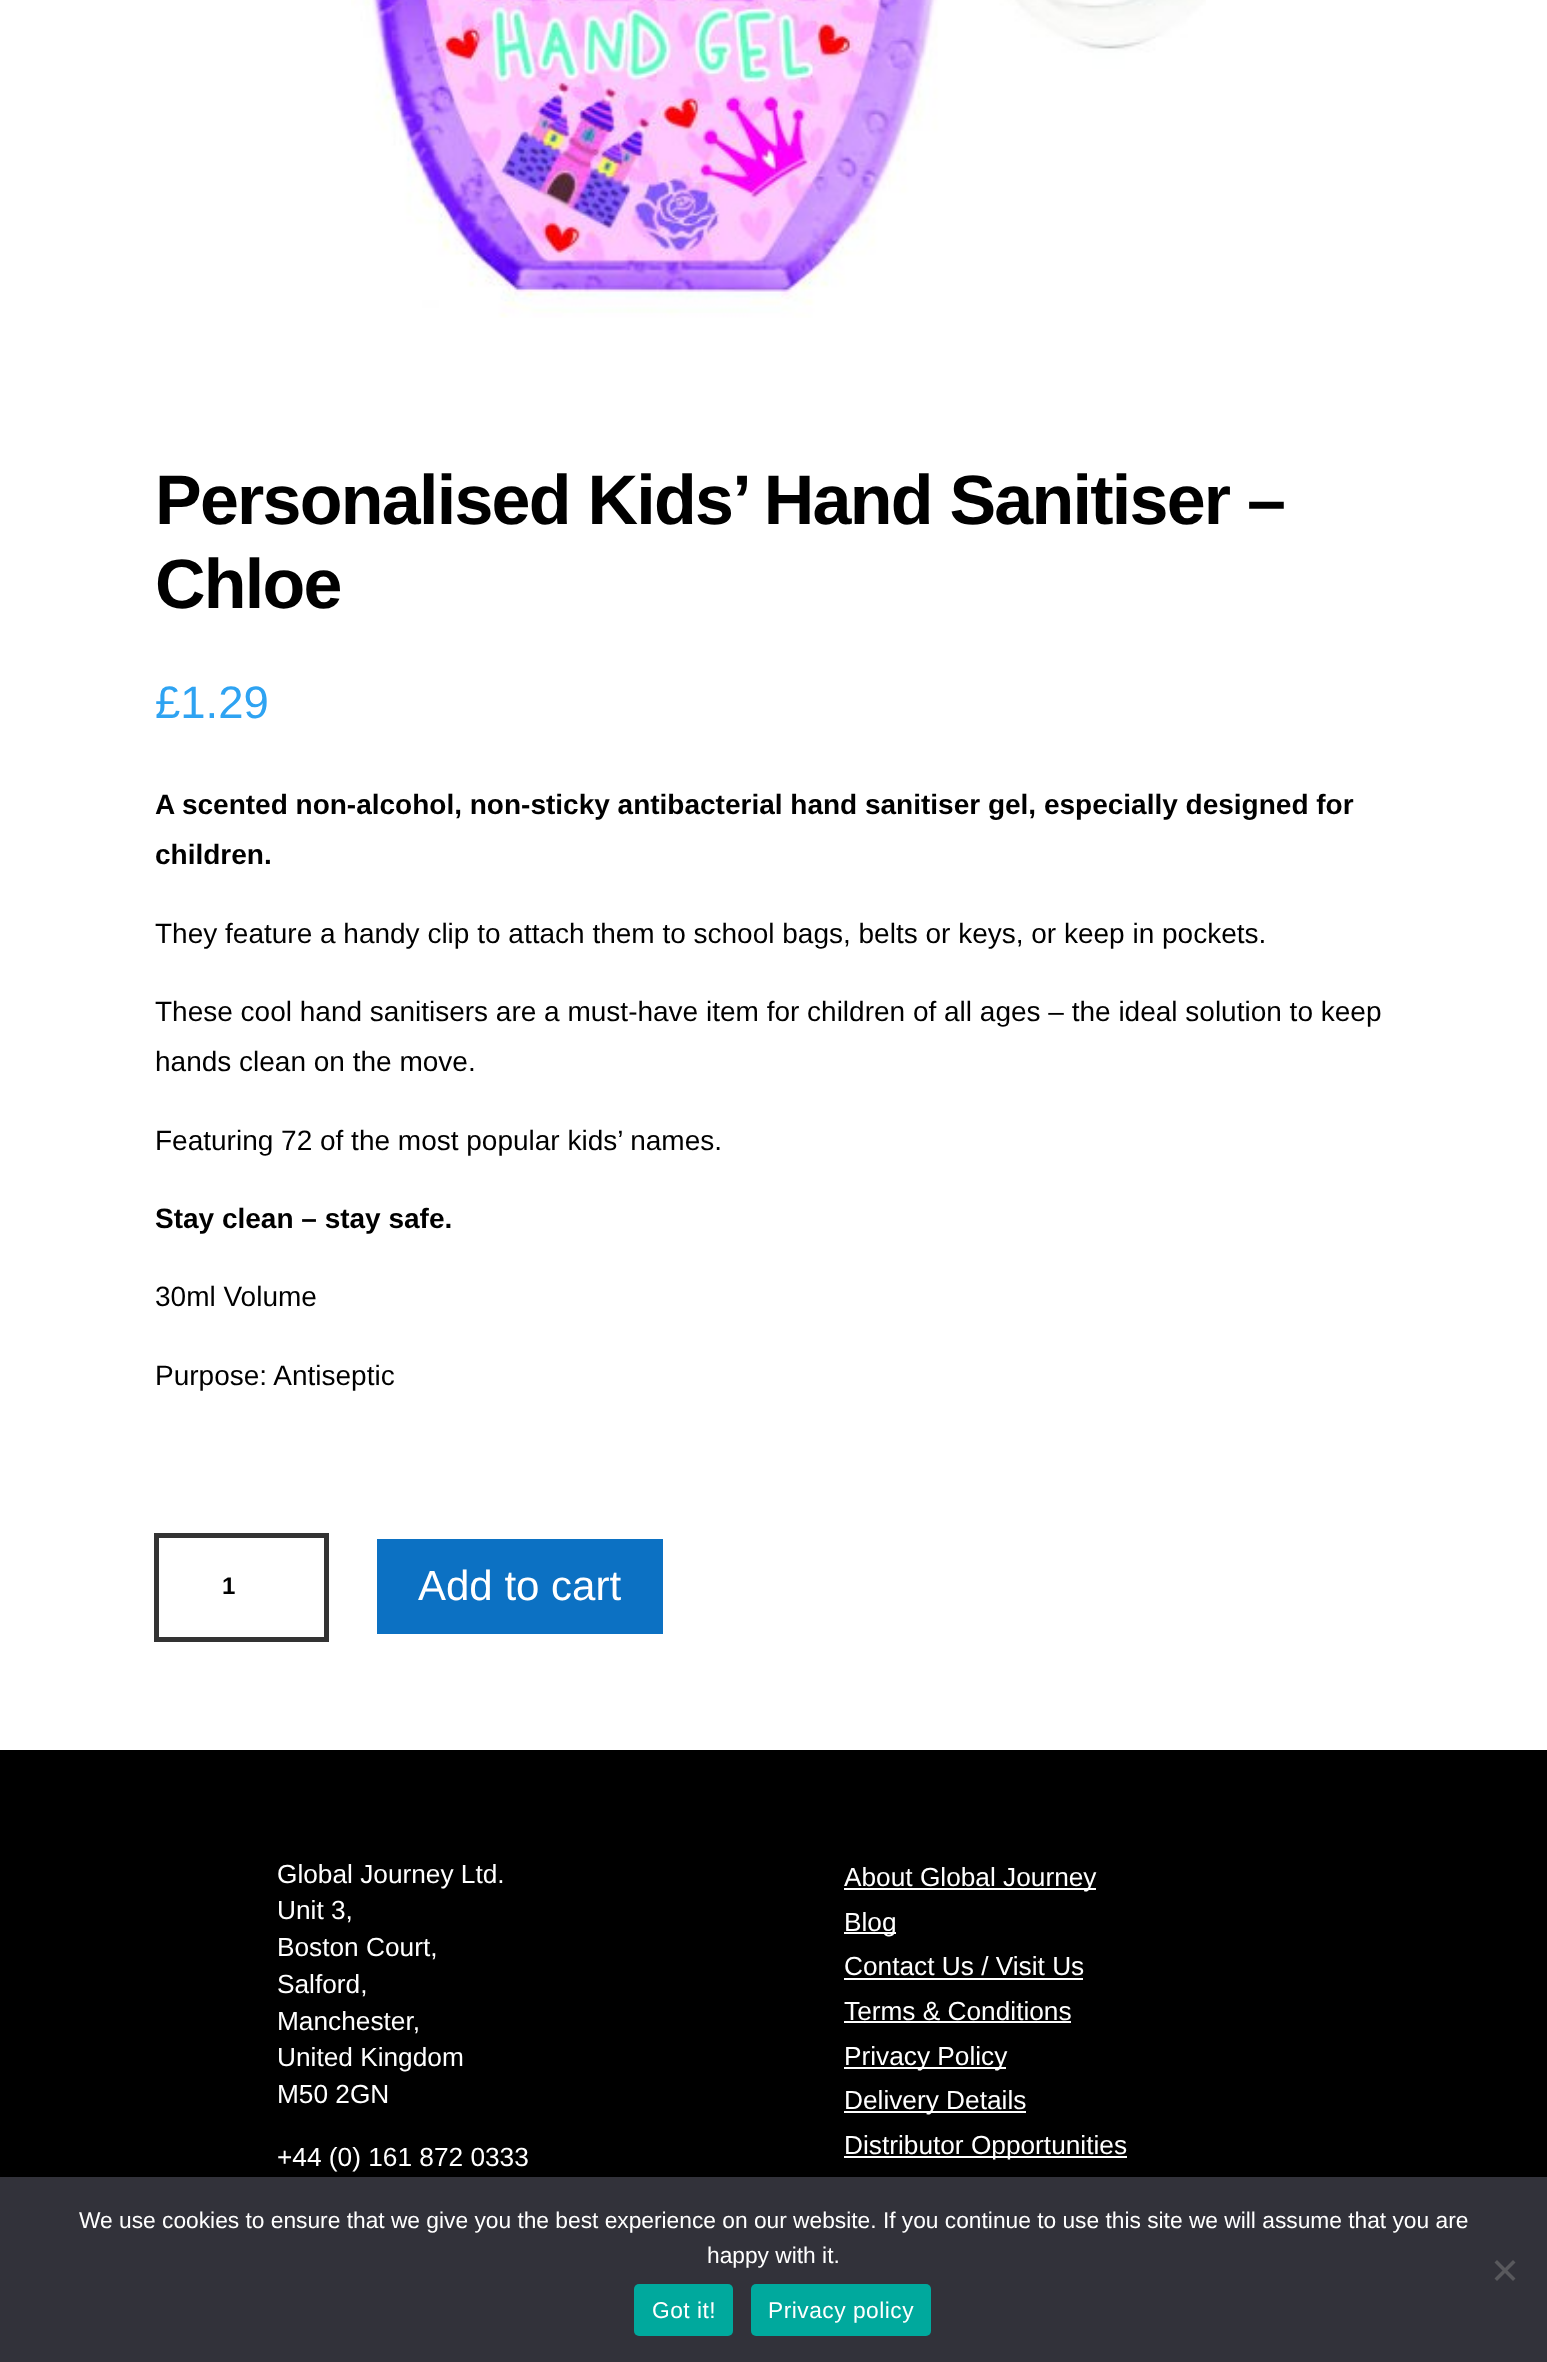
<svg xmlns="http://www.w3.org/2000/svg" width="1547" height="2362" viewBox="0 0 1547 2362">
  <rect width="100%" height="100%" fill="rgb(255,255,255)"/>
  <image x="351" y="0" width="855" height="318" href="pic1.png"/>
  <g font-family="Liberation Sans" font-size="70" font-weight="bold" letter-spacing="-1.75" fill="rgb(0,0,0)">
    <text>
      <tspan x="155" y="524">Personalised Kids’ Hand Sanitiser –</tspan>
      <tspan x="155" y="608">Chloe</tspan>
    </text>
  </g>
  <text x="155" y="718" font-family="Liberation Sans" font-size="45.5" fill="rgb(46,163,242)">£1.29</text>
  <g font-family="Liberation Sans" font-size="28" font-weight="bold" fill="rgb(0,0,0)">
    <text>
      <tspan x="155" y="814">A scented non-alcohol, non-sticky antibacterial hand sanitiser gel, especially designed for</tspan>
      <tspan x="155" y="864">children.</tspan>
    </text>
  </g>
  <g font-family="Liberation Sans" font-size="28" fill="rgb(0,0,0)">
    <text x="155" y="943">They feature a handy clip to attach them to school bags, belts or keys, or keep in pockets.</text>
    <text>
      <tspan x="155" y="1021">These cool hand sanitisers are a must-have item for children of all ages – the ideal solution to keep</tspan>
      <tspan x="155" y="1071">hands clean on the move.</tspan>
    </text>
    <text x="155" y="1150">Featuring 72 of the most popular kids’ names.</text>
  </g>
  <text x="155" y="1228" font-family="Liberation Sans" font-size="28" font-weight="bold" fill="rgb(0,0,0)">Stay clean – stay safe.</text>
  <g font-family="Liberation Sans" font-size="28" fill="rgb(0,0,0)">
    <text x="155" y="1306">30ml Volume</text>
    <text x="155" y="1385">Purpose: Antiseptic</text>
  </g>
  <rect x="156.5" y="1535.5" width="170" height="104" fill="none" stroke="rgb(51,51,51)" stroke-width="5"/>
  <text x="222" y="1594" font-family="Liberation Sans" font-size="24" font-weight="bold" fill="rgb(0,0,0)">1</text>
  <rect x="377" y="1539" width="286" height="95" fill="rgb(12,113,195)"/>
  <text x="418" y="1600" font-family="Liberation Sans" font-size="42" fill="rgb(255,255,255)">Add to cart</text>
  <rect x="0" y="1750" width="1547" height="427" fill="rgb(0,0,0)"/>
  <g font-family="Liberation Sans" font-size="26.25" fill="rgb(255,255,255)">
    <text>
      <tspan x="277" y="1883">Global Journey Ltd.</tspan>
      <tspan x="277" y="1919">Unit 3,</tspan>
      <tspan x="277" y="1956">Boston Court,</tspan>
      <tspan x="277" y="1993">Salford,</tspan>
      <tspan x="277" y="2030">Manchester,</tspan>
      <tspan x="277" y="2066">United Kingdom</tspan>
      <tspan x="277" y="2103">M50 2GN</tspan>
    </text>
    <text x="277" y="2166">+44 (0) 161 872 0333</text>
  </g>
  <rect x="844" y="1888" width="252" height="2" fill="rgb(255,255,255)"/>
  <text x="844" y="1886" font-family="Liberation Sans" font-size="26.25" fill="rgb(255,255,255)">About Global Journey</text>
  <rect x="844" y="1932" width="52" height="2" fill="rgb(255,255,255)"/>
  <g font-family="Liberation Sans" font-size="26.25" fill="rgb(255,255,255)">
    <text>
      <tspan x="844" y="1931">Blog</tspan>
      <tspan x="844" y="1975">Contact Us / Visit Us</tspan>
    </text>
  </g>
  <rect x="844" y="1978" width="239" height="2" fill="rgb(255,255,255)"/>
  <text x="844" y="2020" font-family="Liberation Sans" font-size="26.25" fill="rgb(255,255,255)">Terms &amp; Conditions</text>
  <rect x="844" y="2021" width="227" height="2" fill="rgb(255,255,255)"/>
  <rect x="844" y="2067" width="162" height="2" fill="rgb(255,255,255)"/>
  <text x="844" y="2065" font-family="Liberation Sans" font-size="26.25" fill="rgb(255,255,255)">Privacy Policy</text>
  <rect x="844" y="2111" width="182" height="2" fill="rgb(255,255,255)"/>
  <text x="844" y="2109" font-family="Liberation Sans" font-size="26.25" fill="rgb(255,255,255)">Delivery Details</text>
  <rect x="844" y="2156" width="283" height="2" fill="rgb(255,255,255)"/>
  <text x="844" y="2154" font-family="Liberation Sans" font-size="26.25" fill="rgb(255,255,255)">Distributor Opportunities</text>
  <rect x="0" y="2177" width="1547" height="185" fill="rgb(50,50,58)"/>
  <g font-family="Liberation Sans" font-size="22.75" fill="rgb(255,255,255)">
    <text x="79" y="2228">We use cookies to ensure that we give you the best experience on our website. If you continue to use this site we will assume that you are</text>
    <text x="707" y="2263">happy with it.</text>
  </g>
  <path d="M1513 2260L1515.5 2262.5L1497 2281L1494.5 2278.5Z" fill="rgb(89,89,93)"/>
  <path d="M1494.5 2262.5L1497 2260L1515.5 2278.5L1513 2281Z" fill="rgb(89,89,93)"/>
  <rect x="634" y="2284" width="99" height="52" rx="5" fill="rgb(0,169,157)"/>
  <text x="652" y="2318" font-family="Liberation Sans" font-size="22.75" letter-spacing="0.5" fill="rgb(255,255,255)">Got it!</text>
  <rect x="751" y="2284" width="180" height="52" rx="5" fill="rgb(0,169,157)"/>
  <text x="768" y="2318" font-family="Liberation Sans" font-size="22.75" letter-spacing="0.5" fill="rgb(255,255,255)">Privacy policy</text>
</svg>
